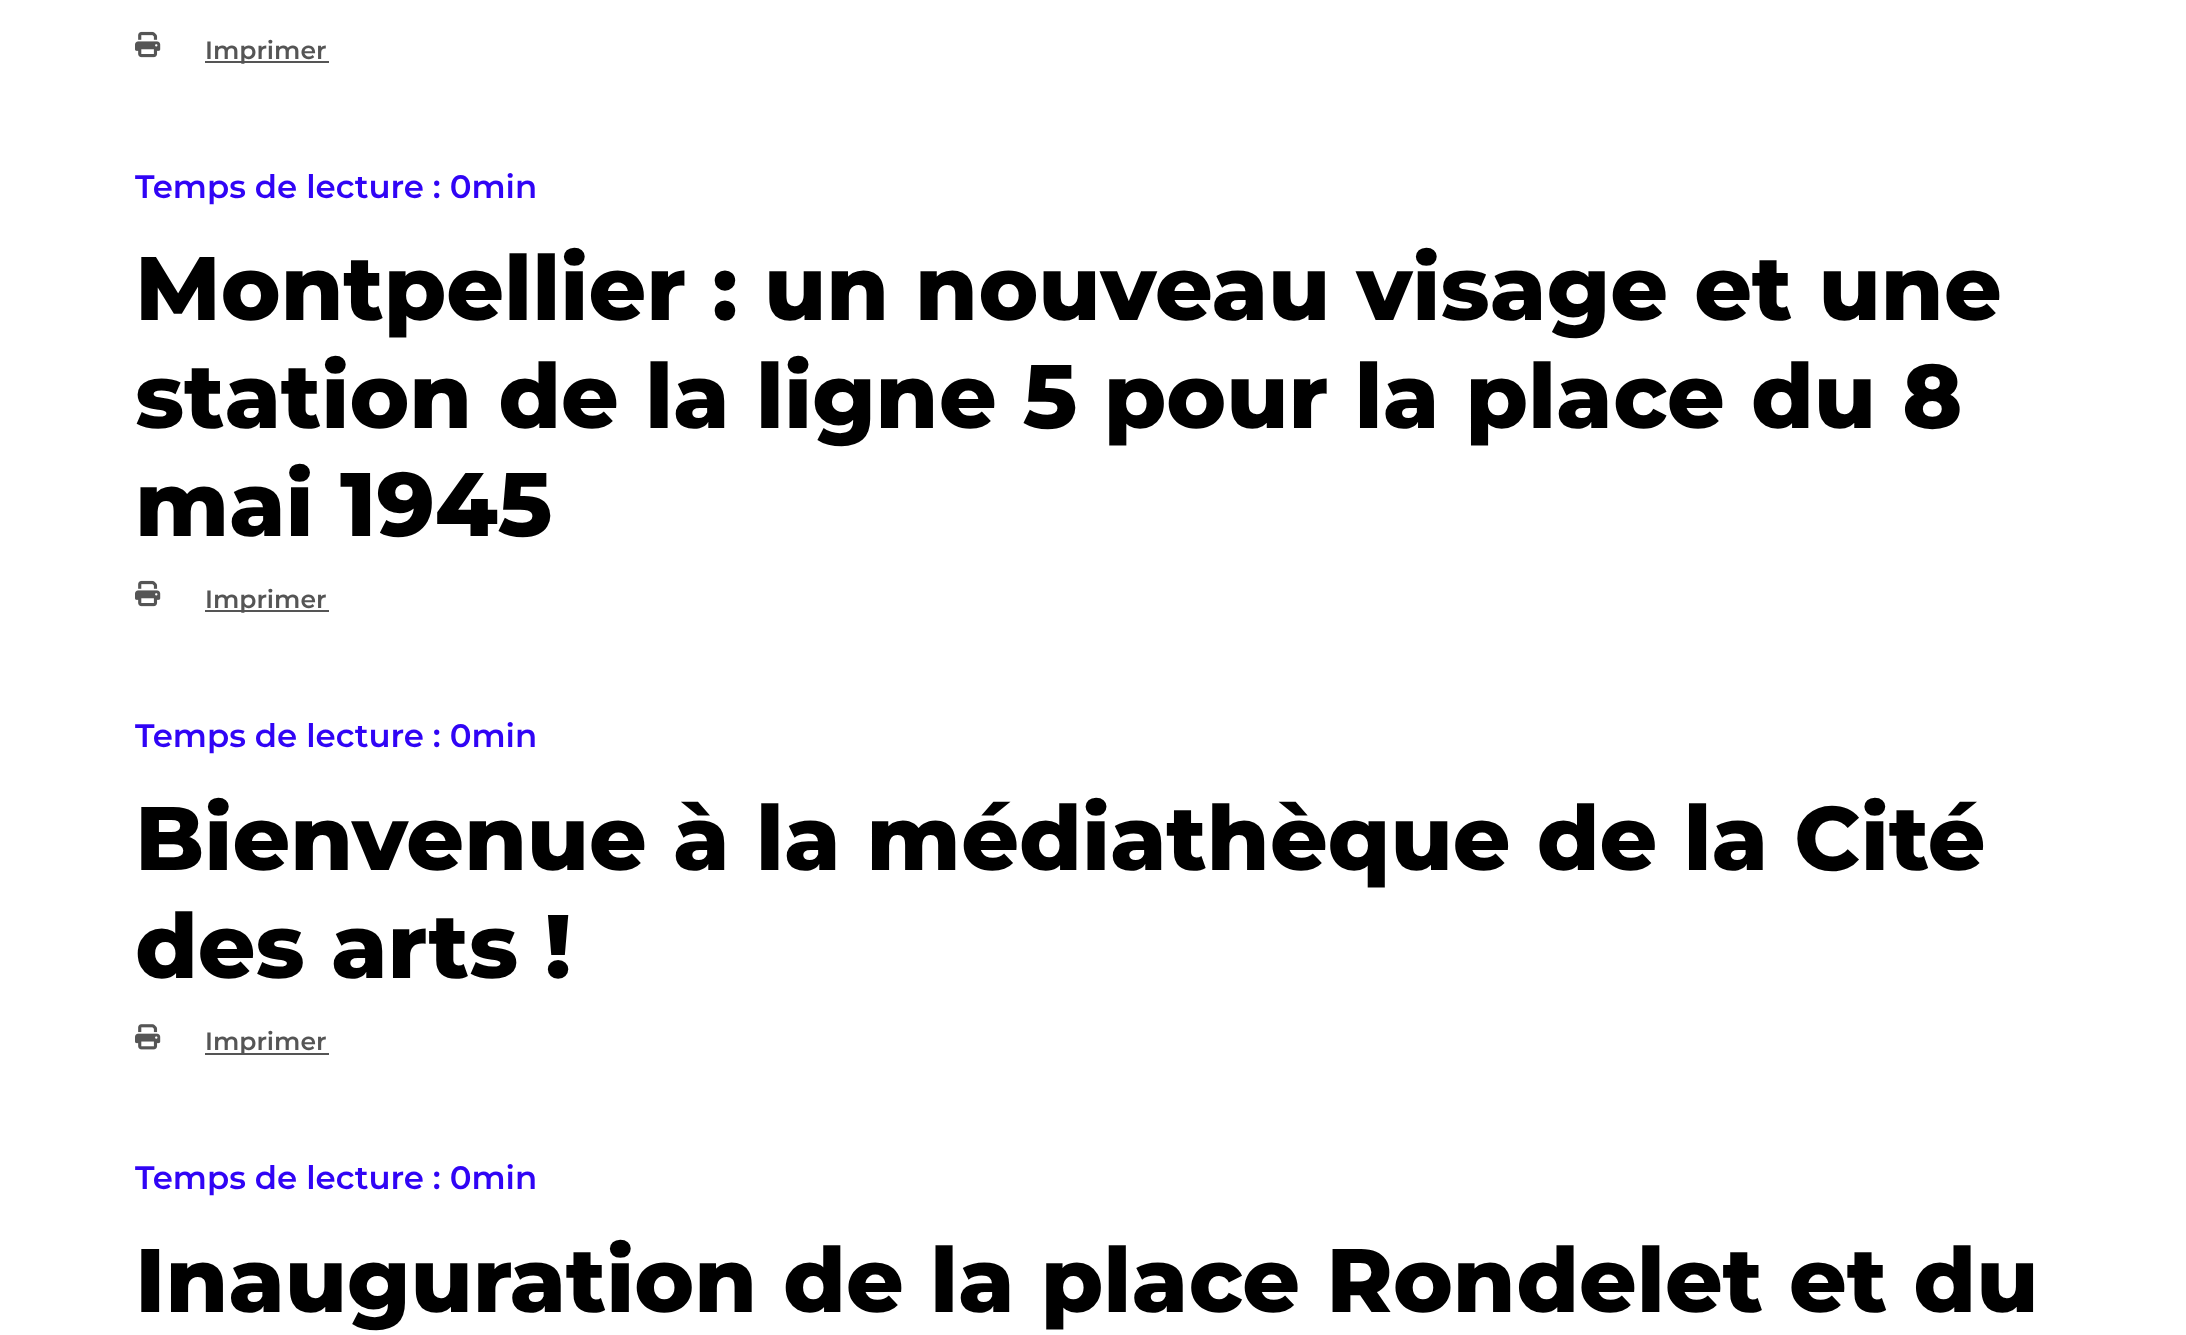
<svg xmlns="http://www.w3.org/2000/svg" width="2186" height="1335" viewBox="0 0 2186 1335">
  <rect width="100%" height="100%" fill="rgb(255,255,255)"/>
  <image x="135" y="31" width="26" height="27" href="pic1.png"/>
  <rect x="205" y="61" width="124" height="2" fill="rgb(85,85,85)"/>
  <text x="205" y="59" font-family="Montserrat" font-size="25" font-weight="600" fill="rgb(85,85,85)">Imprimer</text>
  <text x="135" y="198" font-family="Montserrat" font-size="32.4" font-weight="600" fill="rgb(48,4,245)">Temps de lecture : 0min</text>
  <g font-family="Montserrat" font-size="90" font-weight="800" fill="rgb(0,0,0)">
    <text>
      <tspan x="135" y="320">Montpellier : un nouveau visage et une</tspan>
      <tspan x="135" y="428">station de la ligne 5 pour la place du 8</tspan>
      <tspan x="135" y="536">mai 1945</tspan>
    </text>
  </g>
  <image x="135" y="580" width="26" height="27" href="pic1.png"/>
  <rect x="205" y="610" width="124" height="2" fill="rgb(85,85,85)"/>
  <text x="205" y="608" font-family="Montserrat" font-size="25" font-weight="600" fill="rgb(85,85,85)">Imprimer</text>
  <text x="135" y="747" font-family="Montserrat" font-size="32.4" font-weight="600" fill="rgb(48,4,245)">Temps de lecture : 0min</text>
  <g font-family="Montserrat" font-size="90" font-weight="800" fill="rgb(0,0,0)">
    <text>
      <tspan x="135" y="870">Bienvenue à la médiathèque de la Cité</tspan>
      <tspan x="135" y="978">des arts !</tspan>
    </text>
  </g>
  <image x="135" y="1024" width="26" height="26" href="pic2.png"/>
  <rect x="205" y="1053" width="124" height="2" fill="rgb(85,85,85)"/>
  <text x="205" y="1050" font-family="Montserrat" font-size="25" font-weight="600" fill="rgb(85,85,85)">Imprimer</text>
  <text x="135" y="1189" font-family="Montserrat" font-size="32.4" font-weight="600" fill="rgb(48,4,245)">Temps de lecture : 0min</text>
  <text x="135" y="1312" font-family="Montserrat" font-size="90" font-weight="800" fill="rgb(0,0,0)">Inauguration de la place Rondelet et du</text>
</svg>
